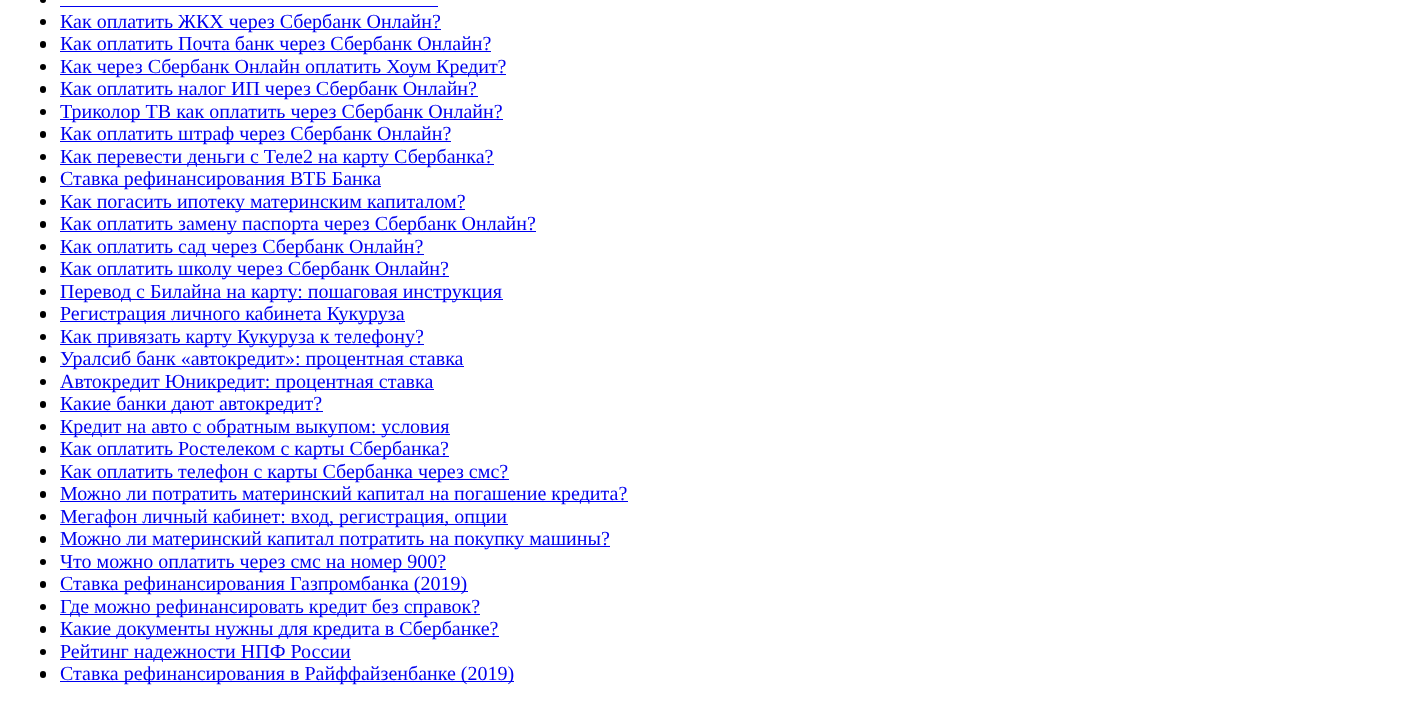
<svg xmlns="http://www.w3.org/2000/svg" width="1422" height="705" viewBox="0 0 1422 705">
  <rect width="100%" height="100%" fill="rgb(255,255,255)"/>
  <circle cx="43" cy="0" r="3" fill="rgb(0,0,0)"/>
  <rect x="60" y="6" width="378" height="1" fill="rgb(0,0,238)"/>
  <circle cx="43" cy="22" r="3" fill="rgb(0,0,0)"/>
  <rect x="60" y="29" width="381" height="1" fill="rgb(0,0,238)"/>
  <text x="60" y="28" font-family="Liberation Serif" font-size="20" fill="rgb(0,0,238)">Как оплатить ЖКХ через Сбербанк Онлайн?</text>
  <rect x="40" y="41" width="6" height="7" rx="3" fill="rgb(0,0,0)"/>
  <rect x="60" y="51" width="431" height="1" fill="rgb(0,0,238)"/>
  <text x="60" y="50" font-family="Liberation Serif" font-size="20" fill="rgb(0,0,238)">Как оплатить Почта банк через Сбербанк Онлайн?</text>
  <circle cx="43" cy="67" r="3" fill="rgb(0,0,0)"/>
  <rect x="60" y="74" width="446" height="1" fill="rgb(0,0,238)"/>
  <text x="60" y="73" font-family="Liberation Serif" font-size="20" fill="rgb(0,0,238)">Как через Сбербанк Онлайн оплатить Хоум Кредит?</text>
  <rect x="40" y="86" width="6" height="7" rx="3" fill="rgb(0,0,0)"/>
  <rect x="60" y="96" width="418" height="1" fill="rgb(0,0,238)"/>
  <text x="60" y="95" font-family="Liberation Serif" font-size="20" fill="rgb(0,0,238)">Как оплатить налог ИП через Сбербанк Онлайн?</text>
  <circle cx="43" cy="112" r="3" fill="rgb(0,0,0)"/>
  <rect x="60" y="119" width="443" height="1" fill="rgb(0,0,238)"/>
  <text x="60" y="118" font-family="Liberation Serif" font-size="20" fill="rgb(0,0,238)">Триколор ТВ как оплатить через Сбербанк Онлайн?</text>
  <rect x="40" y="131" width="6" height="7" rx="3" fill="rgb(0,0,0)"/>
  <rect x="60" y="141" width="391" height="1" fill="rgb(0,0,238)"/>
  <text x="60" y="140" font-family="Liberation Serif" font-size="20" fill="rgb(0,0,238)">Как оплатить штраф через Сбербанк Онлайн?</text>
  <circle cx="43" cy="157" r="3" fill="rgb(0,0,0)"/>
  <rect x="60" y="164" width="434" height="1" fill="rgb(0,0,238)"/>
  <text x="60" y="163" font-family="Liberation Serif" font-size="20" fill="rgb(0,0,238)">Как перевести деньги с Теле2 на карту Сбербанка?</text>
  <rect x="40" y="176" width="6" height="7" rx="3" fill="rgb(0,0,0)"/>
  <rect x="60" y="186" width="321" height="1" fill="rgb(0,0,238)"/>
  <text x="60" y="185" font-family="Liberation Serif" font-size="20" fill="rgb(0,0,238)">Ставка рефинансирования ВТБ Банка</text>
  <circle cx="43" cy="202" r="3" fill="rgb(0,0,0)"/>
  <rect x="60" y="209" width="405" height="1" fill="rgb(0,0,238)"/>
  <text x="60" y="208" font-family="Liberation Serif" font-size="20" fill="rgb(0,0,238)">Как погасить ипотеку материнским капиталом?</text>
  <rect x="40" y="221" width="6" height="7" rx="3" fill="rgb(0,0,0)"/>
  <rect x="60" y="231" width="476" height="1" fill="rgb(0,0,238)"/>
  <text x="60" y="230" font-family="Liberation Serif" font-size="20" fill="rgb(0,0,238)">Как оплатить замену паспорта через Сбербанк Онлайн?</text>
  <circle cx="43" cy="247" r="3" fill="rgb(0,0,0)"/>
  <rect x="60" y="254" width="364" height="1" fill="rgb(0,0,238)"/>
  <text x="60" y="253" font-family="Liberation Serif" font-size="20" fill="rgb(0,0,238)">Как оплатить сад через Сбербанк Онлайн?</text>
  <rect x="40" y="266" width="6" height="7" rx="3" fill="rgb(0,0,0)"/>
  <rect x="60" y="276" width="389" height="1" fill="rgb(0,0,238)"/>
  <text x="60" y="275" font-family="Liberation Serif" font-size="20" fill="rgb(0,0,238)">Как оплатить школу через Сбербанк Онлайн?</text>
  <circle cx="43" cy="292" r="3" fill="rgb(0,0,0)"/>
  <rect x="60" y="299" width="443" height="1" fill="rgb(0,0,238)"/>
  <text x="60" y="298" font-family="Liberation Serif" font-size="20" fill="rgb(0,0,238)">Перевод с Билайна на карту: пошаговая инструкция</text>
  <rect x="40" y="311" width="6" height="7" rx="3" fill="rgb(0,0,0)"/>
  <rect x="60" y="321" width="345" height="1" fill="rgb(0,0,238)"/>
  <text x="60" y="320" font-family="Liberation Serif" font-size="20" fill="rgb(0,0,238)">Регистрация личного кабинета Кукуруза</text>
  <circle cx="43" cy="337" r="3" fill="rgb(0,0,0)"/>
  <rect x="60" y="344" width="364" height="1" fill="rgb(0,0,238)"/>
  <text x="60" y="343" font-family="Liberation Serif" font-size="20" fill="rgb(0,0,238)">Как привязать карту Кукуруза к телефону?</text>
  <rect x="40" y="356" width="6" height="7" rx="3" fill="rgb(0,0,0)"/>
  <rect x="60" y="366" width="404" height="1" fill="rgb(0,0,238)"/>
  <text x="60" y="365" font-family="Liberation Serif" font-size="20" fill="rgb(0,0,238)">Уралсиб банк «автокредит»: процентная ставка</text>
  <circle cx="43" cy="382" r="3" fill="rgb(0,0,0)"/>
  <rect x="60" y="389" width="374" height="1" fill="rgb(0,0,238)"/>
  <text x="60" y="388" font-family="Liberation Serif" font-size="20" fill="rgb(0,0,238)">Автокредит Юникредит: процентная ставка</text>
  <rect x="40" y="401" width="6" height="7" rx="3" fill="rgb(0,0,0)"/>
  <rect x="60" y="411" width="263" height="1" fill="rgb(0,0,238)"/>
  <text x="60" y="410" font-family="Liberation Serif" font-size="20" fill="rgb(0,0,238)">Какие банки дают автокредит?</text>
  <circle cx="43" cy="427" r="3" fill="rgb(0,0,0)"/>
  <rect x="60" y="434" width="390" height="1" fill="rgb(0,0,238)"/>
  <text x="60" y="433" font-family="Liberation Serif" font-size="20" fill="rgb(0,0,238)">Кредит на авто с обратным выкупом: условия</text>
  <rect x="40" y="446" width="6" height="7" rx="3" fill="rgb(0,0,0)"/>
  <rect x="60" y="456" width="389" height="1" fill="rgb(0,0,238)"/>
  <text x="60" y="455" font-family="Liberation Serif" font-size="20" fill="rgb(0,0,238)">Как оплатить Ростелеком с карты Сбербанка?</text>
  <circle cx="43" cy="472" r="3" fill="rgb(0,0,0)"/>
  <rect x="60" y="479" width="449" height="1" fill="rgb(0,0,238)"/>
  <text x="60" y="478" font-family="Liberation Serif" font-size="20" fill="rgb(0,0,238)">Как оплатить телефон с карты Сбербанка через смс?</text>
  <rect x="40" y="491" width="6" height="7" rx="3" fill="rgb(0,0,0)"/>
  <rect x="60" y="501" width="568" height="1" fill="rgb(0,0,238)"/>
  <text x="60" y="500" font-family="Liberation Serif" font-size="20" fill="rgb(0,0,238)">Можно ли потратить материнский капитал на погашение кредита?</text>
  <circle cx="43" cy="517" r="3" fill="rgb(0,0,0)"/>
  <rect x="60" y="524" width="448" height="1" fill="rgb(0,0,238)"/>
  <text x="60" y="523" font-family="Liberation Serif" font-size="20" fill="rgb(0,0,238)">Мегафон личный кабинет: вход, регистрация, опции</text>
  <rect x="40" y="536" width="6" height="7" rx="3" fill="rgb(0,0,0)"/>
  <rect x="60" y="546" width="550" height="1" fill="rgb(0,0,238)"/>
  <text x="60" y="545" font-family="Liberation Serif" font-size="20" fill="rgb(0,0,238)">Можно ли материнский капитал потратить на покупку машины?</text>
  <circle cx="43" cy="562" r="3" fill="rgb(0,0,0)"/>
  <rect x="60" y="569" width="386" height="1" fill="rgb(0,0,238)"/>
  <text x="60" y="568" font-family="Liberation Serif" font-size="20" fill="rgb(0,0,238)">Что можно оплатить через смс на номер 900?</text>
  <rect x="40" y="581" width="6" height="7" rx="3" fill="rgb(0,0,0)"/>
  <rect x="60" y="591" width="408" height="1" fill="rgb(0,0,238)"/>
  <text x="60" y="590" font-family="Liberation Serif" font-size="20" fill="rgb(0,0,238)">Ставка рефинансирования Газпромбанка (2019)</text>
  <circle cx="43" cy="607" r="3" fill="rgb(0,0,0)"/>
  <rect x="60" y="614" width="420" height="1" fill="rgb(0,0,238)"/>
  <text x="60" y="613" font-family="Liberation Serif" font-size="20" fill="rgb(0,0,238)">Где можно рефинансировать кредит без справок?</text>
  <rect x="40" y="626" width="6" height="7" rx="3" fill="rgb(0,0,0)"/>
  <rect x="60" y="636" width="439" height="1" fill="rgb(0,0,238)"/>
  <text x="60" y="635" font-family="Liberation Serif" font-size="20" fill="rgb(0,0,238)">Какие документы нужны для кредита в Сбербанке?</text>
  <circle cx="43" cy="652" r="3" fill="rgb(0,0,0)"/>
  <rect x="60" y="659" width="291" height="1" fill="rgb(0,0,238)"/>
  <text x="60" y="658" font-family="Liberation Serif" font-size="20" fill="rgb(0,0,238)">Рейтинг надежности НПФ России</text>
  <rect x="40" y="671" width="6" height="7" rx="3" fill="rgb(0,0,0)"/>
  <rect x="60" y="681" width="454" height="1" fill="rgb(0,0,238)"/>
  <text x="60" y="680" font-family="Liberation Serif" font-size="20" fill="rgb(0,0,238)">Ставка рефинансирования в Райффайзенбанке (2019)</text>
</svg>
